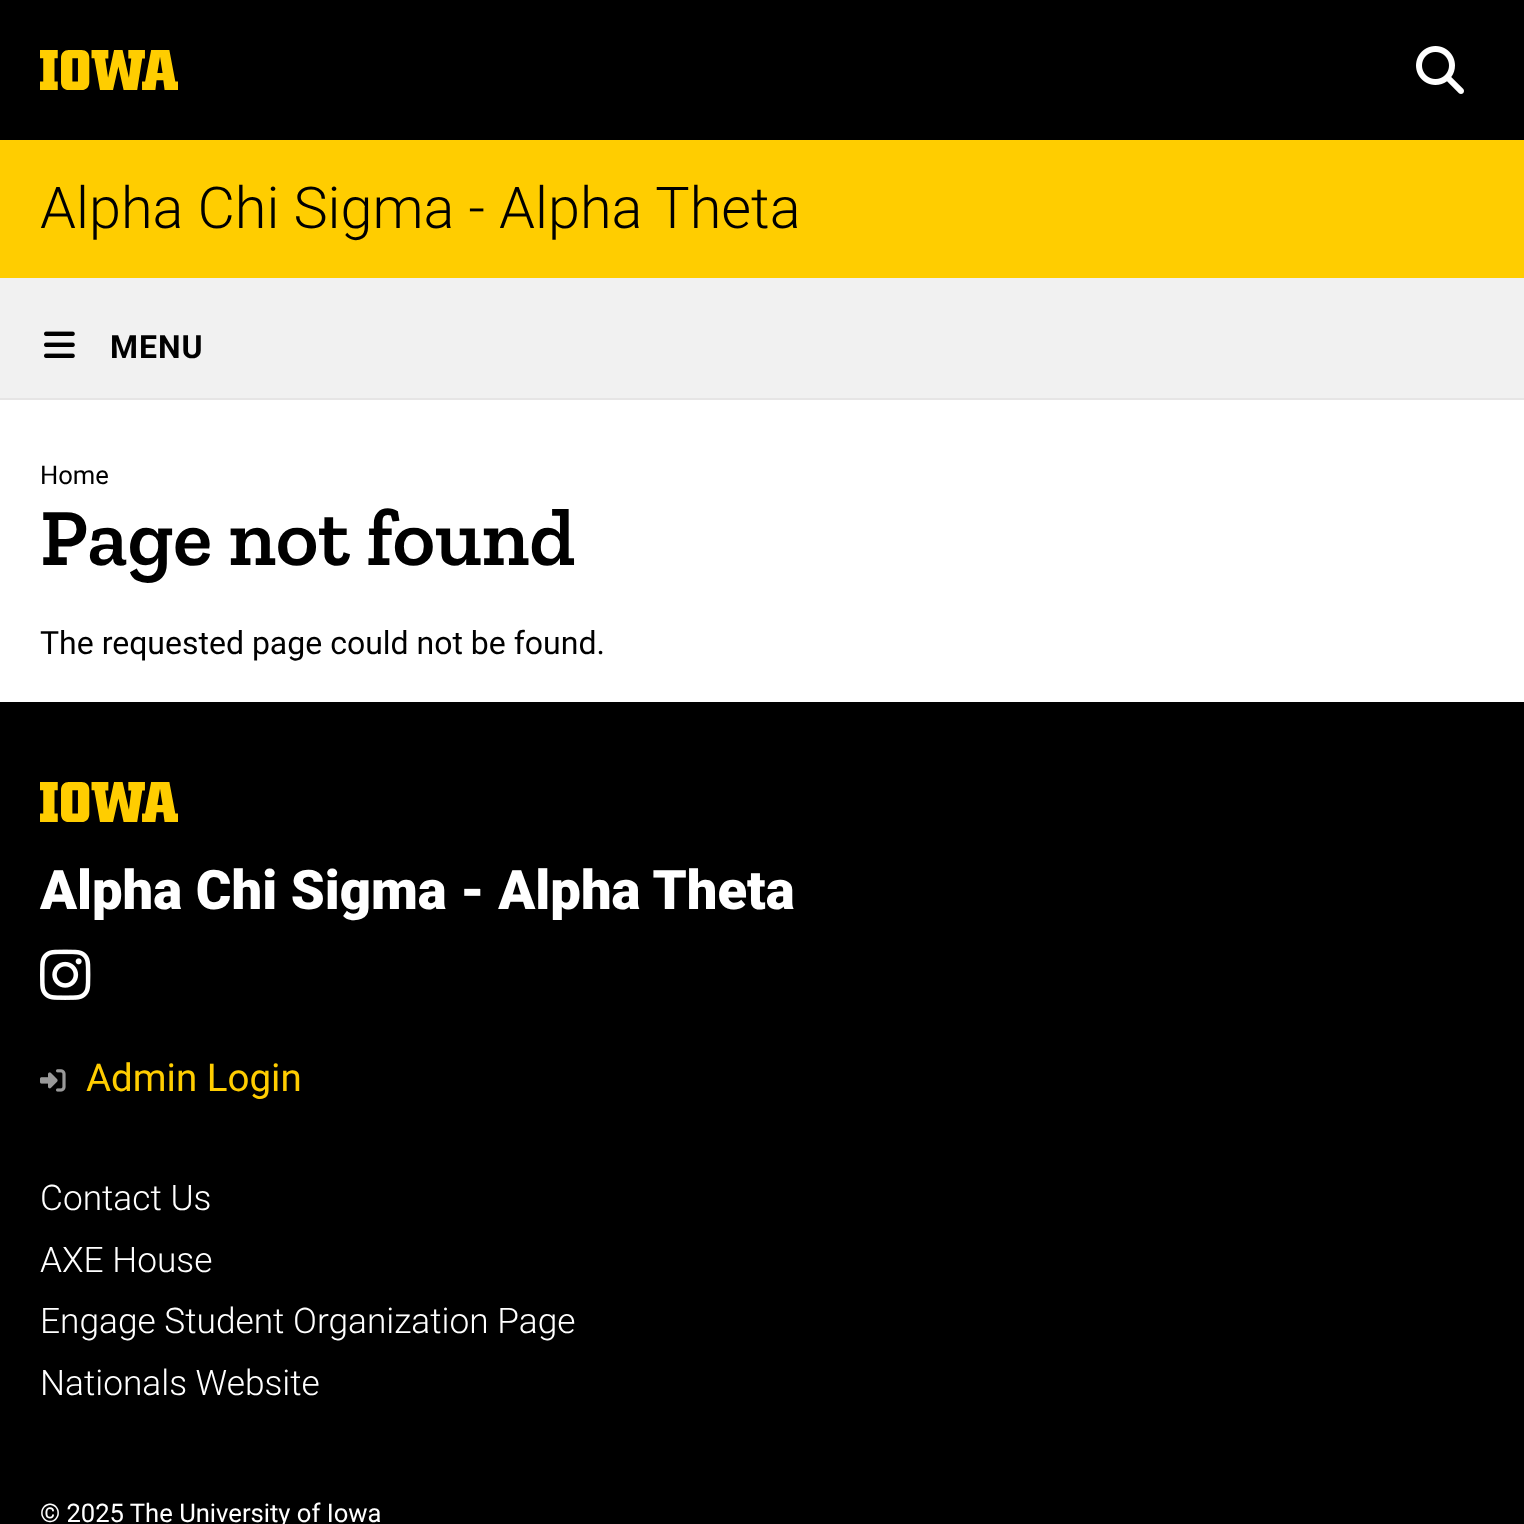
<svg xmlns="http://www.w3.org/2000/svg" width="1524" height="1524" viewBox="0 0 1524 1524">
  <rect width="100%" height="100%" fill="rgb(255,255,255)"/>
  <rect x="0" y="0" width="1524" height="140" fill="rgb(0,0,0)"/>
  <image x="40" y="50" width="138" height="40" href="pic1.png"/>
  <image x="1416" y="46" width="48" height="48" href="pic2.png"/>
  <rect x="0" y="140" width="1524" height="138" fill="rgb(255,205,0)"/>
  <text x="40" y="228" font-family="Roboto" font-size="57.6" font-weight="300" fill="rgb(0,0,0)">Alpha Chi Sigma - Alpha Theta</text>
  <rect x="0" y="398" width="1524" height="2" fill="rgb(230,229,229)"/>
  <rect x="0" y="278" width="1524" height="120" fill="rgb(241,241,241)"/>
  <image x="44" y="331" width="31" height="27" href="pic3.png"/>
  <text x="110" y="358" font-family="Roboto" font-size="32" font-weight="bold" letter-spacing="1" fill="rgb(0,0,0)">MENU</text>
  <text x="40" y="484" font-family="Roboto" font-size="25.6" fill="rgb(0,0,0)">Home</text>
  <text x="40" y="565" font-family="Zilla Slab" font-size="81.25" font-weight="600" fill="rgb(0,0,0)">Page not found</text>
  <text x="40" y="654" font-family="Roboto" font-size="32" fill="rgb(0,0,0)">The requested page could not be found.</text>
  <rect x="0" y="702" width="1524" height="822" fill="rgb(0,0,0)"/>
  <image x="40" y="782" width="138" height="40" href="pic1.png"/>
  <text x="40" y="909" font-family="Roboto" font-size="54.4" font-weight="900" fill="rgb(255,255,255)">Alpha Chi Sigma - Alpha Theta</text>
  <image x="40" y="949" width="51" height="51" href="pic4.png"/>
  <image x="40" y="1069" width="26" height="23" href="pic5.png"/>
  <text x="86" y="1091" font-family="Roboto" font-size="38.5" fill="rgb(255,205,0)">Admin Login</text>
  <g font-family="Roboto" font-size="35.25" font-weight="300" fill="rgb(255,255,255)">
    <text>
      <tspan x="40" y="1210">Contact Us</tspan>
      <tspan x="40" y="1272">AXE House</tspan>
      <tspan x="40" y="1333">Engage Student Organization Page</tspan>
      <tspan x="40" y="1395">Nationals Website</tspan>
    </text>
  </g>
  <text x="40" y="1522" font-family="Roboto" font-size="25.6" fill="rgb(255,255,255)">© 2025 The University of Iowa</text>
</svg>
